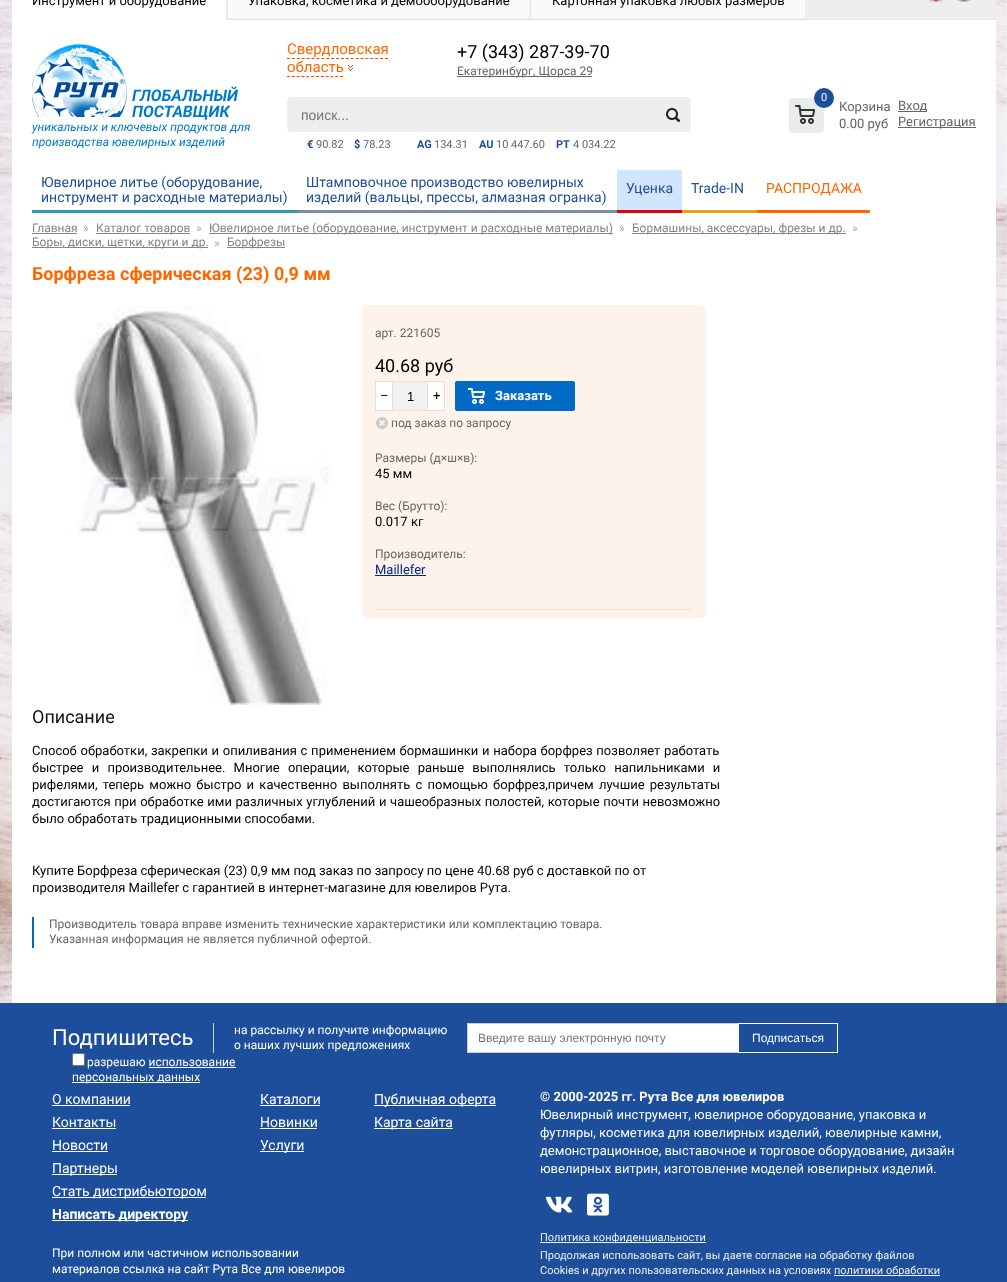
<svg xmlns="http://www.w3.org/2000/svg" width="1007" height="1282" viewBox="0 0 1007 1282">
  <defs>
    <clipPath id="clip1"><rect x="32" y="705" width="688" height="138"/></clipPath>
  </defs>
  <rect width="100%" height="100%" fill="rgb(255,255,255)"/>
  <image x="0" y="0" width="1007" height="1003" href="pic1.png"/>
  <rect x="12" y="20" width="984" height="983" fill="rgb(255,255,255)"/>
  <rect x="227" y="0" width="769" height="19" fill="rgb(238,238,238)"/>
  <rect x="227" y="19" width="769" height="1" fill="rgb(229,229,229)"/>
  <rect x="926.5" y="-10.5" width="19" height="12" rx="9.5" fill="none" stroke="rgb(185,185,185)"/>
  <rect x="954.5" y="-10.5" width="19" height="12" rx="9.5" fill="none" stroke="rgb(185,185,185)"/>
  <image x="932" y="0" width="8" height="1" href="pic2.png"/>
  <image x="960" y="0" width="8" height="1" href="pic3.png"/>
  <rect x="12" y="0" width="214" height="20" fill="rgb(255,255,255)"/>
  <rect x="226" y="0" width="1" height="20" fill="rgb(229,229,229)"/>
  <rect x="11" y="0" width="1" height="20" fill="rgb(229,229,229)"/>
  <text x="32" y="5" font-family="Roboto" font-size="13" fill="rgb(0,0,0)">Инструмент и оборудование</text>
  <rect x="228" y="0" width="301" height="18" fill="rgb(250,250,250)"/>
  <text x="248" y="5" font-family="Roboto" font-size="13" fill="rgb(0,0,0)">Упаковка, косметика и демооборудование</text>
  <rect x="532" y="0" width="273" height="18" fill="rgb(250,250,250)"/>
  <text x="552" y="5" font-family="Roboto" font-size="13" fill="rgb(0,0,0)">Картонная упаковка любых размеров</text>
  <text x="287" y="54" font-family="Roboto" font-size="15" fill="rgb(255,102,0)">Свердловская</text>
  <path d="M287 58.5H388" fill="none" stroke="rgb(254,66,0)" stroke-dasharray="3 1.9"/>
  <text x="287" y="72" font-family="Roboto" font-size="15" fill="rgb(255,102,0)">область</text>
  <path d="M287 76.5H343" fill="none" stroke="rgb(254,66,0)" stroke-dasharray="3 1.82"/>
  <image x="348" y="65" width="5" height="6" href="pic4.png"/>
  <text x="457" y="58" font-family="Roboto" font-size="18" fill="rgb(0,0,0)">+7 (343) 287-39-70</text>
  <rect x="457" y="76" width="135" height="1" fill="rgb(102,102,102)"/>
  <text x="457" y="75" font-family="Roboto" font-size="12" fill="rgb(102,102,102)">Екатеринбург, Щорса 29</text>
  <image x="32" y="44" width="95" height="73" href="pic5.png"/>
  <g font-family="Roboto" font-size="16" font-weight="bold" font-style="italic" fill="rgb(0,122,201)">
    <text>
      <tspan x="132" y="101">ГЛОБАЛЬНЫЙ</tspan>
      <tspan x="132" y="117">ПОСТАВЩИК</tspan>
    </text>
  </g>
  <g font-family="Roboto" font-size="12" font-style="italic" fill="rgb(0,122,201)">
    <text>
      <tspan x="32" y="131">уникальных и ключевых продуктов для</tspan>
      <tspan x="32" y="146">производства ювелирных изделий</tspan>
    </text>
  </g>
  <rect x="287.5" y="97.5" width="403" height="34" rx="3.5" fill="rgb(238,238,238)" stroke="rgb(238,238,238)"/>
  <text x="301" y="120" font-family="Liberation Sans" font-size="14" fill="rgb(117,117,117)">поиск...</text>
  <image x="666" y="108" width="14" height="15" href="pic6.png"/>
  <rect x="789" y="98" width="35" height="35" rx="4" fill="rgb(234,235,236)"/>
  <image x="795" y="105" width="20" height="19" href="pic7.png"/>
  <circle cx="824" cy="98" r="10" fill="rgb(29,78,155)"/>
  <text x="821" y="101" font-family="Roboto" font-size="11" fill="rgb(255,255,255)">0</text>
  <text x="839" y="111" font-family="Roboto" font-size="13" fill="rgb(102,102,102)">Корзина</text>
  <text x="839" y="128" font-family="Roboto" font-size="13" fill="rgb(95,95,95)">0.00 руб</text>
  <rect x="898" y="111" width="29" height="1" fill="rgb(102,102,102)"/>
  <text x="898" y="110" font-family="Roboto" font-size="13" fill="rgb(102,102,102)">Вход</text>
  <rect x="898" y="127" width="78" height="1" fill="rgb(102,102,102)"/>
  <text x="898" y="126" font-family="Roboto" font-size="13" fill="rgb(102,102,102)">Регистрация</text>
  <text x="307" y="148" font-family="Roboto" font-size="11" font-weight="bold" fill="rgb(29,78,155)">€</text>
  <text x="316" y="148" font-family="Roboto" font-size="11" fill="rgb(102,102,102)">90.82</text>
  <text x="354" y="148" font-family="Roboto" font-size="11" font-weight="bold" fill="rgb(29,78,155)">$</text>
  <text x="363" y="148" font-family="Roboto" font-size="11" fill="rgb(102,102,102)">78.23</text>
  <text x="417" y="148" font-family="Roboto" font-size="11" font-weight="bold" fill="rgb(29,78,155)">AG</text>
  <text x="434" y="148" font-family="Roboto" font-size="11" fill="rgb(102,102,102)">134.31</text>
  <text x="479" y="148" font-family="Roboto" font-size="11" font-weight="bold" fill="rgb(29,78,155)">AU</text>
  <text x="496" y="148" font-family="Roboto" font-size="11" fill="rgb(102,102,102)">10 447.60</text>
  <text x="556" y="148" font-family="Roboto" font-size="11" font-weight="bold" fill="rgb(29,78,155)">PT</text>
  <text x="573" y="148" font-family="Roboto" font-size="11" fill="rgb(102,102,102)">4 034.22</text>
  <rect x="32" y="210" width="265" height="3" fill="rgb(45,153,180)"/>
  <g font-family="Roboto" font-size="14" fill="rgb(29,78,155)">
    <text>
      <tspan x="41" y="187">Ювелирное литье (оборудование,</tspan>
      <tspan x="41" y="202">инструмент и расходные материалы)</tspan>
    </text>
  </g>
  <rect x="297" y="210" width="320" height="3" fill="rgb(126,140,157)"/>
  <g font-family="Roboto" font-size="14" fill="rgb(29,78,155)">
    <text>
      <tspan x="306" y="187">Штамповочное производство ювелирных</tspan>
      <tspan x="306" y="202">изделий (вальцы, прессы, алмазная огранка)</tspan>
    </text>
  </g>
  <rect x="617" y="170" width="65" height="40" fill="rgb(209,229,255)"/>
  <rect x="617" y="210" width="65" height="3" fill="rgb(227,0,11)"/>
  <text x="626" y="193" font-family="Roboto" font-size="14" fill="rgb(29,78,155)">Уценка</text>
  <rect x="682" y="210" width="75" height="3" fill="rgb(227,164,19)"/>
  <text x="691" y="193" font-family="Roboto" font-size="14" fill="rgb(29,78,155)">Trade-IN</text>
  <rect x="757" y="210" width="113" height="3" fill="rgb(255,102,0)"/>
  <text x="766" y="193" font-family="Roboto" font-size="14" fill="rgb(255,102,0)">РАСПРОДАЖА</text>
  <text x="32" y="232" font-family="Roboto" font-size="12" fill="rgb(133,133,133)">Главная</text>
  <rect x="32" y="233" width="45" height="1" fill="rgb(133,133,133)"/>
  <text x="83" y="232" font-family="Roboto" font-size="12" fill="rgb(160,160,160)">»</text>
  <rect x="96" y="233" width="94" height="1" fill="rgb(133,133,133)"/>
  <text x="96" y="232" font-family="Roboto" font-size="12" fill="rgb(133,133,133)">Каталог товаров</text>
  <text x="196" y="232" font-family="Roboto" font-size="12" fill="rgb(160,160,160)">»</text>
  <rect x="209" y="233" width="404" height="1" fill="rgb(133,133,133)"/>
  <text x="209" y="232" font-family="Roboto" font-size="12" fill="rgb(133,133,133)">Ювелирное литье (оборудование, инструмент и расходные материалы)</text>
  <text x="619" y="232" font-family="Roboto" font-size="12" fill="rgb(160,160,160)">»</text>
  <rect x="632" y="233" width="214" height="1" fill="rgb(133,133,133)"/>
  <text x="632" y="232" font-family="Roboto" font-size="12" fill="rgb(133,133,133)">Бормашины, аксессуары, фрезы и др.</text>
  <text x="852" y="232" font-family="Roboto" font-size="12" fill="rgb(160,160,160)">»</text>
  <rect x="32" y="247" width="176" height="1" fill="rgb(133,133,133)"/>
  <text x="32" y="246" font-family="Roboto" font-size="12" fill="rgb(133,133,133)">Боры, диски, щетки, круги и др.</text>
  <text x="214" y="247" font-family="Roboto" font-size="12" fill="rgb(160,160,160)">»</text>
  <rect x="227" y="247" width="58" height="1" fill="rgb(133,133,133)"/>
  <text x="227" y="246" font-family="Roboto" font-size="12" fill="rgb(133,133,133)">Борфрезы</text>
  <text x="32" y="280" font-family="Roboto" font-size="18" font-weight="bold" fill="rgb(255,102,0)">Борфреза сферическая (23) 0,9 мм</text>
  <image x="70" y="305" width="259" height="400" href="pic8.png"/>
  <rect x="362" y="305" width="344" height="313" rx="5" fill="rgb(253,243,235)"/>
  <text x="375" y="337" font-family="Roboto" font-size="12" fill="rgb(102,102,102)">арт. 221605</text>
  <text x="375" y="372" font-family="Roboto" font-size="18" fill="rgb(0,0,0)">40.68 руб</text>
  <rect x="393" y="382" width="34" height="28" fill="rgb(241,241,241)"/>
  <rect x="375.5" y="381.5" width="69" height="29" fill="none" stroke="rgb(225,225,225)"/>
  <rect x="375.5" y="381.5" width="17" height="29" fill="rgb(255,255,255)" stroke="rgb(225,225,225)"/>
  <text x="380" y="400" font-family="Roboto" font-size="13" fill="rgb(0,0,0)">–</text>
  <text x="407" y="401" font-family="Liberation Sans" font-size="13" fill="rgb(0,0,0)">1</text>
  <rect x="427.5" y="381.5" width="17" height="29" fill="rgb(255,255,255)" stroke="rgb(225,225,225)"/>
  <text x="433" y="400" font-family="Roboto" font-size="13" fill="rgb(0,0,0)">+</text>
  <rect x="455" y="381" width="120" height="30" rx="2" fill="rgb(0,106,197)"/>
  <image x="468" y="388" width="17" height="16" href="pic9.png"/>
  <text x="495" y="400" font-family="Roboto" font-size="13" font-weight="bold" fill="rgb(255,255,255)">Заказать</text>
  <image x="376" y="417" width="12" height="12" href="pic10.png"/>
  <g font-family="Roboto" font-size="12" fill="rgb(102,102,102)">
    <text x="391" y="427">под заказ по запросу</text>
    <text x="375" y="462">Размеры (д×ш×в):</text>
  </g>
  <text x="375" y="478" font-family="Roboto" font-size="13" fill="rgb(0,0,0)">45 мм</text>
  <text x="375" y="510" font-family="Roboto" font-size="12" fill="rgb(102,102,102)">Вес (Брутто):</text>
  <text x="375" y="526" font-family="Roboto" font-size="13" fill="rgb(0,0,0)">0.017 кг</text>
  <text x="375" y="558" font-family="Roboto" font-size="12" fill="rgb(102,102,102)">Производитель:</text>
  <text x="375" y="574" font-family="Roboto" font-size="13" fill="rgb(0,37,137)">Maillefer</text>
  <rect x="375" y="575" width="51" height="1" fill="rgb(0,37,137)"/>
  <rect x="375" y="609" width="317" height="1" fill="rgb(245,229,196)"/>
  <text x="32" y="723" font-family="Roboto" font-size="18" fill="rgb(17,17,17)">Описание</text>
  <g font-family="Roboto" font-size="13" fill="rgb(0,0,0)">
    <text>
      <tspan x="32" y="755" word-spacing="0.5">Способ обработки, закрепки и опиливания с применением бормашинки и набора борфрез позволяет работать</tspan>
      <tspan x="32" y="772" word-spacing="5">быстрее и производительнее. Многие операции, которые раньше выполнялись только напильниками и</tspan>
      <tspan x="32" y="789" word-spacing="2">рифелями, теперь можно быстро и качественно выполнять с помощью борфрез,причем лучшие результаты</tspan>
    </text>
  </g>
  <g clip-path="url(#clip1)">
    <text x="32" y="806" word-spacing="0.4" font-family="Roboto" font-size="13" fill="rgb(0,0,0)">достигаются при обработке ими различных углублений и чашеобразных полостей, которые почти невозможно</text>
  </g>
  <g font-family="Roboto" font-size="13" fill="rgb(0,0,0)">
    <text x="32" y="823">было обработать традиционными способами.</text>
    <text>
      <tspan x="32" y="875">Купите Борфреза сферическая (23) 0,9 мм под заказ по запросу по цене 40.68 руб с доставкой по от</tspan>
      <tspan x="32" y="892">производителя Maillefer с гарантией в интернет-магазине для ювелиров Рута.</tspan>
    </text>
  </g>
  <rect x="32" y="917" width="2" height="31" fill="rgb(0,106,197)"/>
  <g font-family="Roboto" font-size="12" fill="rgb(102,102,102)">
    <text>
      <tspan x="49" y="928">Производитель товара вправе изменить технические характеристики или комплектацию товара.</tspan>
      <tspan x="49" y="943">Указанная информация не является публичной офертой.</tspan>
    </text>
  </g>
  <rect x="0" y="1003" width="1007" height="279" fill="rgb(29,78,155)"/>
  <text x="52" y="1045" font-family="Roboto" font-size="22" fill="rgb(255,255,255)">Подпишитесь</text>
  <rect x="213" y="1023" width="1" height="30" fill="rgb(204,204,204)"/>
  <g font-family="Roboto" font-size="12" fill="rgb(255,255,255)">
    <text>
      <tspan x="234" y="1034">на рассылку и получите информацию</tspan>
      <tspan x="234" y="1049">о наших лучших предложениях</tspan>
    </text>
  </g>
  <rect x="468" y="1024" width="270" height="28" fill="rgb(255,255,255)"/>
  <rect x="467" y="1023" width="271" height="1" fill="rgb(204,204,204)"/>
  <rect x="467" y="1052" width="271" height="1" fill="rgb(204,204,204)"/>
  <rect x="467" y="1023" width="1" height="30" fill="rgb(204,204,204)"/>
  <text x="478" y="1042" font-family="Liberation Sans" font-size="12" fill="rgb(117,117,117)">Введите вашу электронную почту</text>
  <rect x="738.5" y="1023.5" width="99" height="29" fill="none" stroke="rgb(255,255,255)"/>
  <text x="752" y="1042" font-family="Liberation Sans" font-size="12" fill="rgb(255,255,255)">Подписаться</text>
  <rect x="72.5" y="1053.5" width="12" height="12" rx="1.5" fill="rgb(255,255,255)" stroke="rgb(118,118,118)"/>
  <text x="87" y="1066" font-family="Roboto" font-size="12" fill="rgb(255,255,255)">разрешаю использование</text>
  <rect x="72" y="1082" width="128" height="1" fill="rgb(255,255,255)"/>
  <text x="72" y="1081" font-family="Roboto" font-size="12" fill="rgb(255,255,255)">персональных данных</text>
  <rect x="149" y="1067" width="87" height="1" fill="rgb(255,255,255)"/>
  <text x="52" y="1104" font-family="Roboto" font-size="14" fill="rgb(255,255,255)">О компании</text>
  <rect x="52" y="1105" width="78" height="1" fill="rgb(255,255,255)"/>
  <text x="52" y="1127" font-family="Roboto" font-size="14" fill="rgb(255,255,255)">Контакты</text>
  <rect x="52" y="1128" width="64" height="1" fill="rgb(255,255,255)"/>
  <text x="52" y="1150" font-family="Roboto" font-size="14" fill="rgb(255,255,255)">Новости</text>
  <rect x="52" y="1151" width="56" height="1" fill="rgb(255,255,255)"/>
  <rect x="52" y="1174" width="65" height="1" fill="rgb(255,255,255)"/>
  <text x="52" y="1173" font-family="Roboto" font-size="14" fill="rgb(255,255,255)">Партнеры</text>
  <rect x="52" y="1197" width="154" height="1" fill="rgb(255,255,255)"/>
  <g font-family="Roboto" font-size="14" fill="rgb(255,255,255)">
    <text x="52" y="1196">Стать дистрибьютором</text>
    <text x="260" y="1104">Каталоги</text>
  </g>
  <rect x="260" y="1105" width="60" height="1" fill="rgb(255,255,255)"/>
  <text x="260" y="1127" font-family="Roboto" font-size="14" fill="rgb(255,255,255)">Новинки</text>
  <rect x="260" y="1128" width="57" height="1" fill="rgb(255,255,255)"/>
  <rect x="260" y="1151" width="44" height="1" fill="rgb(255,255,255)"/>
  <text x="260" y="1150" font-family="Roboto" font-size="14" fill="rgb(255,255,255)">Услуги</text>
  <rect x="374" y="1105" width="122" height="1" fill="rgb(255,255,255)"/>
  <text x="374" y="1104" font-family="Roboto" font-size="14" fill="rgb(255,255,255)">Публичная оферта</text>
  <rect x="374" y="1128" width="79" height="1" fill="rgb(255,255,255)"/>
  <text x="374" y="1127" font-family="Roboto" font-size="14" fill="rgb(255,255,255)">Карта сайта</text>
  <rect x="52" y="1220" width="136" height="1" fill="rgb(255,255,255)"/>
  <text x="52" y="1219" font-family="Roboto" font-size="14" font-weight="bold" fill="rgb(255,255,255)">Написать директору</text>
  <text x="540" y="1101" font-family="Roboto" font-size="13" font-weight="bold" fill="rgb(255,255,255)">© 2000-2025 гг. Рута Все для ювелиров</text>
  <g font-family="Roboto" font-size="13" fill="rgb(255,255,255)">
    <text>
      <tspan x="540" y="1119">Ювелирный инструмент, ювелирное оборудование, упаковка и</tspan>
      <tspan x="540" y="1137">футляры, косметика для ювелирных изделий, ювелирные камни,</tspan>
      <tspan x="540" y="1155">демонстрационное, выставочное и торговое оборудование, дизайн</tspan>
      <tspan x="540" y="1173">ювелирных витрин, изготовление моделей ювелирных изделий.</tspan>
    </text>
  </g>
  <image x="546" y="1196" width="27" height="17" href="pic11.png"/>
  <image x="587" y="1193" width="22" height="23" href="pic12.png"/>
  <g font-family="Roboto" font-size="12" fill="rgb(255,255,255)">
    <text>
      <tspan x="52" y="1257">При полном или частичном использовании</tspan>
      <tspan x="52" y="1273">материалов ссылка на сайт Рута Все для ювелиров</tspan>
    </text>
  </g>
  <rect x="540" y="1242" width="166" height="1" fill="rgb(241,241,241)"/>
  <g font-family="Roboto" font-size="11" fill="rgb(241,241,241)">
    <text>
      <tspan x="540" y="1241">Политика конфиденциальности</tspan>
      <tspan x="540" y="1259">Продолжая использовать сайт, вы даете согласие на обработку файлов</tspan>
      <tspan x="540" y="1274">Cookies и других пользовательских данных на условиях</tspan>
    </text>
  </g>
  <rect x="834" y="1275" width="106" height="1" fill="rgb(241,241,241)"/>
  <text x="834" y="1274" font-family="Roboto" font-size="11" fill="rgb(241,241,241)">политики обработки</text>
</svg>
